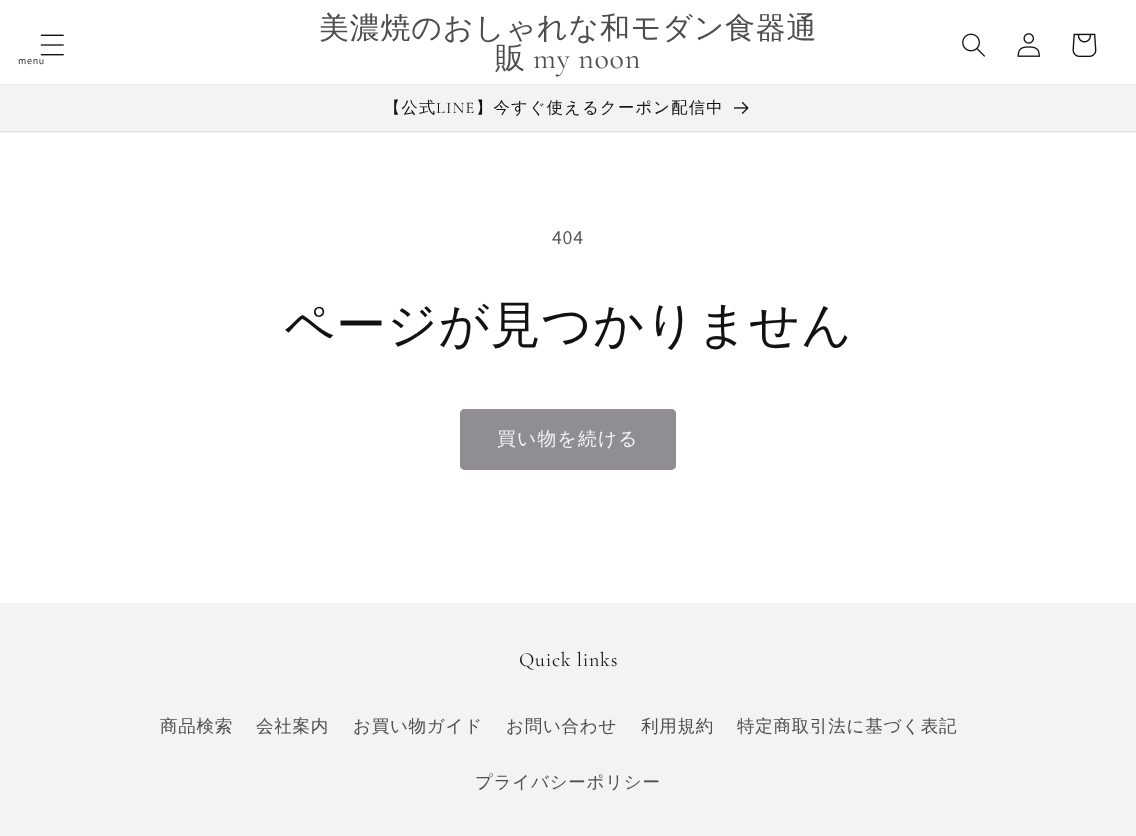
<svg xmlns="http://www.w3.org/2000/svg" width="1136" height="836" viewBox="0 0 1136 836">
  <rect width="100%" height="100%" fill="rgb(255,255,255)"/>
  <rect x="0" y="84" width="1136" height="1" fill="rgb(236,236,236)"/>
  <g font-family="WenQuanYi Zen Hei" font-size="30" font-weight="500" letter-spacing="0.75" fill="rgb(77,77,77)">
    <text x="319" y="38">美濃焼のおしゃれな和モダン食器通</text>
    <text x="495" y="68">販</text>
  </g>
  <text x="533" y="68" font-family="Cormorant" font-size="30" letter-spacing="0.75" fill="rgb(77,77,77)">my noon</text>
  <image x="962" y="33" width="23" height="24" href="pic1.png"/>
  <image x="1017" y="33" width="23" height="24" href="pic2.png"/>
  <image x="1072" y="33" width="25" height="24" href="pic3.png"/>
  <image x="40" y="34" width="24" height="22" href="pic4.png"/>
  <text x="18" y="64" font-family="Assistant" font-size="10" letter-spacing="0.75" fill="rgb(18,18,18)">menu</text>
  <rect x="0" y="85" width="1136" height="48" fill="rgb(243,243,243)"/>
  <rect x="0" y="131" width="1136" height="1" fill="rgb(225,225,225)"/>
  <text x="384" y="113" font-family="WenQuanYi Zen Hei" font-size="16.25" font-weight="500" letter-spacing="1.25" fill="rgb(18,18,18)">【公式</text>
  <text x="436" y="113" font-family="Cormorant" font-size="16.25" letter-spacing="1.25" fill="rgb(18,18,18)">LINE</text>
  <text x="476" y="113" font-family="WenQuanYi Zen Hei" font-size="16.25" font-weight="500" letter-spacing="1.25" fill="rgb(18,18,18)">】今すぐ使えるクーポン配信中</text>
  <image x="734" y="101" width="15" height="13" href="pic5.png"/>
  <text x="552" y="244" font-family="Assistant" font-size="20" letter-spacing="0.75" fill="rgb(77,77,77)">404</text>
  <text x="284" y="342" font-family="WenQuanYi Zen Hei" font-size="50" font-weight="500" letter-spacing="0.75" fill="rgb(18,18,18)">ページが見つかりません</text>
  <rect x="460" y="409" width="216" height="61" rx="5" fill="rgb(145,142,147)"/>
  <rect x="461.5" y="410.5" width="213" height="58" rx="3.5" fill="none" stroke="rgb(145,142,147)" stroke-width="3"/>
  <text x="497" y="445" font-family="WenQuanYi Zen Hei" font-size="18.75" font-weight="500" letter-spacing="1.25" fill="rgb(243,243,243)">買い物を続ける</text>
  <rect x="0" y="603" width="1136" height="233" fill="rgb(243,243,243)"/>
  <text x="519" y="666" font-family="Cormorant" font-size="20" letter-spacing="0.75" fill="rgb(18,18,18)">Quick links</text>
  <g font-family="WenQuanYi Zen Hei" font-size="17.5" font-weight="500" letter-spacing="0.75" fill="rgb(77,77,77)">
    <text x="160" y="732">商品検索</text>
    <text x="256" y="732">会社案内</text>
    <text x="353" y="732">お買い物ガイド</text>
    <text x="506" y="732">お問い合わせ</text>
    <text x="641" y="732">利用規約</text>
    <text x="737" y="732">特定商取引法に基づく表記</text>
    <text x="475" y="788">プライバシーポリシー</text>
  </g>
</svg>
